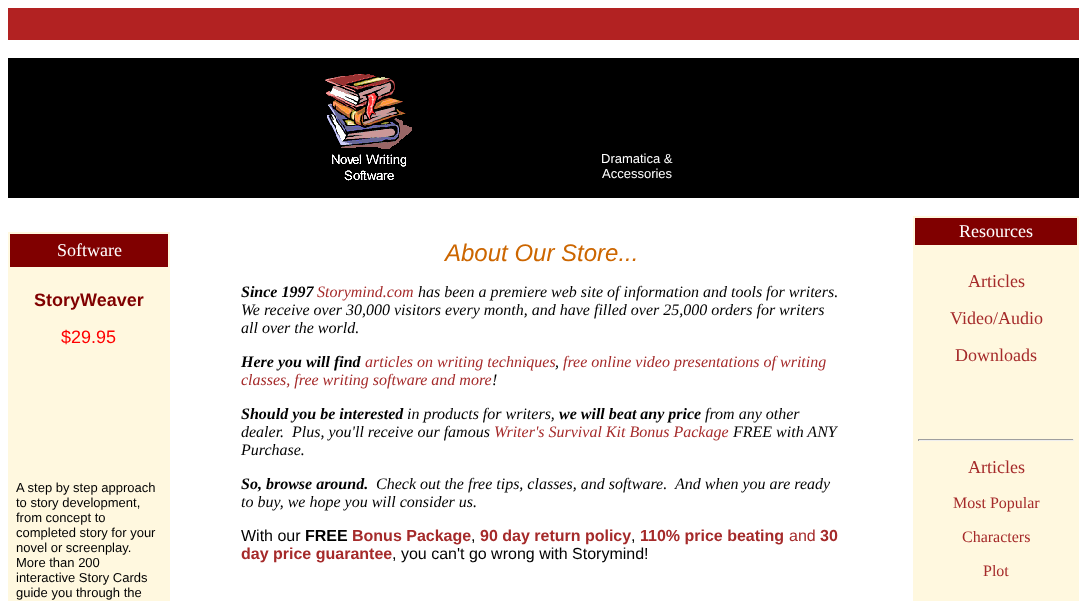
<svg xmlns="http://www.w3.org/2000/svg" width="1087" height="601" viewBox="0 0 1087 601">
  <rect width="100%" height="100%" fill="rgb(255,255,255)"/>
  <rect x="8" y="8" width="1071" height="32" fill="rgb(178,34,34)"/>
  <rect x="8" y="58" width="1071" height="140" fill="rgb(0,0,0)"/>
  <image x="325" y="74" width="87" height="107" href="pic1.png"/>
  <g font-family="Liberation Sans" font-size="13" fill="rgb(255,255,255)">
    <text x="601" y="163">Dramatica &amp;</text>
    <text x="602" y="178">Accessories</text>
  </g>
  <rect x="8" y="232" width="162" height="369" fill="rgb(255,248,223)"/>
  <rect x="10" y="234" width="158" height="33" fill="rgb(128,0,0)"/>
  <text x="57" y="256" font-family="Liberation Serif" font-size="18" fill="rgb(255,255,255)">Software</text>
  <text x="34" y="306" font-family="Liberation Sans" font-size="18" font-weight="bold" fill="rgb(128,0,0)">StoryWeaver</text>
  <text x="61" y="343" font-family="Liberation Sans" font-size="18" fill="rgb(255,0,0)">$29.95</text>
  <g font-family="Liberation Sans" font-size="13" fill="rgb(0,0,0)">
    <text>
      <tspan x="16" y="492">A step by step approach</tspan>
      <tspan x="16" y="507">to story development,</tspan>
      <tspan x="16" y="522">from concept to</tspan>
      <tspan x="16" y="537">completed story for your</tspan>
      <tspan x="16" y="552">novel or screenplay.</tspan>
      <tspan x="16" y="567">More than 200</tspan>
      <tspan x="16" y="582">interactive Story Cards</tspan>
      <tspan x="16" y="597">guide you through the</tspan>
    </text>
  </g>
  <text x="445" y="261" font-family="Liberation Sans" font-size="24" font-style="italic" fill="rgb(204,102,0)">About Our Store...</text>
  <text x="241" y="297" font-family="Liberation Serif" font-size="16" font-weight="bold" font-style="italic" fill="rgb(0,0,0)">Since 1997</text>
  <text x="317" y="297" font-family="Liberation Serif" font-size="16" font-style="italic" fill="rgb(165,42,42)">Storymind.com</text>
  <g font-family="Liberation Serif" font-size="16" font-style="italic" fill="rgb(0,0,0)">
    <text x="418" y="297">has been a premiere web site of information and tools for writers.</text>
    <text>
      <tspan x="241" y="315">We receive over 30,000 visitors every month, and have filled over 25,000 orders for writers</tspan>
      <tspan x="241" y="333">all over the world.</tspan>
    </text>
  </g>
  <text x="241" y="367" font-family="Liberation Serif" font-size="16" font-weight="bold" font-style="italic" fill="rgb(0,0,0)">Here you will find</text>
  <text x="365" y="367" font-family="Liberation Serif" font-size="16" font-style="italic" fill="rgb(165,42,42)">articles on writing techniques</text>
  <text x="555" y="367" font-family="Liberation Serif" font-size="16" font-style="italic" fill="rgb(0,0,0)">,</text>
  <g font-family="Liberation Serif" font-size="16" font-style="italic" fill="rgb(165,42,42)">
    <text x="563" y="367">free online video presentations of writing</text>
    <text x="241" y="385">classes, free writing software and more</text>
  </g>
  <text x="492" y="385" font-family="Liberation Serif" font-size="16" font-style="italic" fill="rgb(0,0,0)">!</text>
  <text x="241" y="419" font-family="Liberation Serif" font-size="16" font-weight="bold" font-style="italic" fill="rgb(0,0,0)">Should you be interested</text>
  <text x="407" y="419" font-family="Liberation Serif" font-size="16" font-style="italic" fill="rgb(0,0,0)">in products for writers,</text>
  <text x="559" y="419" font-family="Liberation Serif" font-size="16" font-weight="bold" font-style="italic" fill="rgb(0,0,0)">we will beat any price</text>
  <g font-family="Liberation Serif" font-size="16" font-style="italic" fill="rgb(0,0,0)">
    <text x="705" y="419">from any other</text>
    <text x="241" y="437">dealer.</text>
    <text x="292" y="437">Plus, you'll receive our famous</text>
  </g>
  <text x="494" y="437" font-family="Liberation Serif" font-size="16" font-style="italic" fill="rgb(165,42,42)">Writer's Survival Kit Bonus Package</text>
  <g font-family="Liberation Serif" font-size="16" font-style="italic" fill="rgb(0,0,0)">
    <text x="733" y="437">FREE with ANY</text>
    <text x="241" y="455">Purchase.</text>
  </g>
  <text x="241" y="489" font-family="Liberation Serif" font-size="16" font-weight="bold" font-style="italic" fill="rgb(0,0,0)">So, browse around.</text>
  <g font-family="Liberation Serif" font-size="16" font-style="italic" fill="rgb(0,0,0)">
    <text x="376" y="489" xml:space="preserve">Check out the free tips, classes, and software.  And when you are ready</text>
    <text x="241" y="507">to buy, we hope you will consider us.</text>
  </g>
  <text x="241" y="541" font-family="Liberation Sans" font-size="16" fill="rgb(0,0,0)">With our</text>
  <text x="305" y="541" font-family="Liberation Sans" font-size="16" font-weight="bold" fill="rgb(0,0,0)">FREE</text>
  <g font-family="Liberation Sans" font-size="16" font-weight="bold" fill="rgb(165,42,42)">
    <text x="352" y="541">Bonus Package</text>
    <text x="480" y="541">90 day return policy</text>
    <text x="640" y="541">110% price beating</text>
  </g>
  <text x="789" y="541" font-family="Liberation Sans" font-size="16" fill="rgb(165,42,42)">and</text>
  <text x="820" y="541" font-family="Liberation Sans" font-size="16" font-weight="bold" fill="rgb(165,42,42)">30</text>
  <g font-family="Liberation Sans" font-size="16" fill="rgb(0,0,0)">
    <text x="471" y="541">,</text>
    <text x="631" y="541">,</text>
  </g>
  <text x="241" y="559" font-family="Liberation Sans" font-size="16" font-weight="bold" fill="rgb(165,42,42)">day price guarantee</text>
  <text x="392" y="559" font-family="Liberation Sans" font-size="16" fill="rgb(0,0,0)">, you can't go wrong with Storymind!</text>
  <rect x="913" y="216" width="166" height="385" fill="rgb(255,248,223)"/>
  <rect x="915" y="218" width="162" height="27" fill="rgb(128,0,0)"/>
  <text x="959" y="237" font-family="Liberation Serif" font-size="18" fill="rgb(255,255,255)">Resources</text>
  <g font-family="Liberation Serif" font-size="18" fill="rgb(165,42,42)">
    <text x="968" y="287">Articles</text>
    <text x="950" y="324">Video/Audio</text>
    <text x="955" y="361">Downloads</text>
  </g>
  <rect x="918" y="439" width="156" height="1" fill="rgb(159,159,159)"/>
  <rect x="1073" y="439" width="1" height="2" fill="rgb(238,238,238)"/>
  <rect x="918" y="440" width="156" height="1" fill="rgb(238,238,238)"/>
  <rect x="918" y="439" width="1" height="2" fill="rgb(159,159,159)"/>
  <text x="968" y="473" font-family="Liberation Serif" font-size="18" fill="rgb(165,42,42)">Articles</text>
  <g font-family="Liberation Serif" font-size="16" fill="rgb(165,42,42)">
    <text x="953" y="508">Most Popular</text>
    <text x="962" y="542">Characters</text>
    <text x="983" y="576">Plot</text>
  </g>
</svg>
